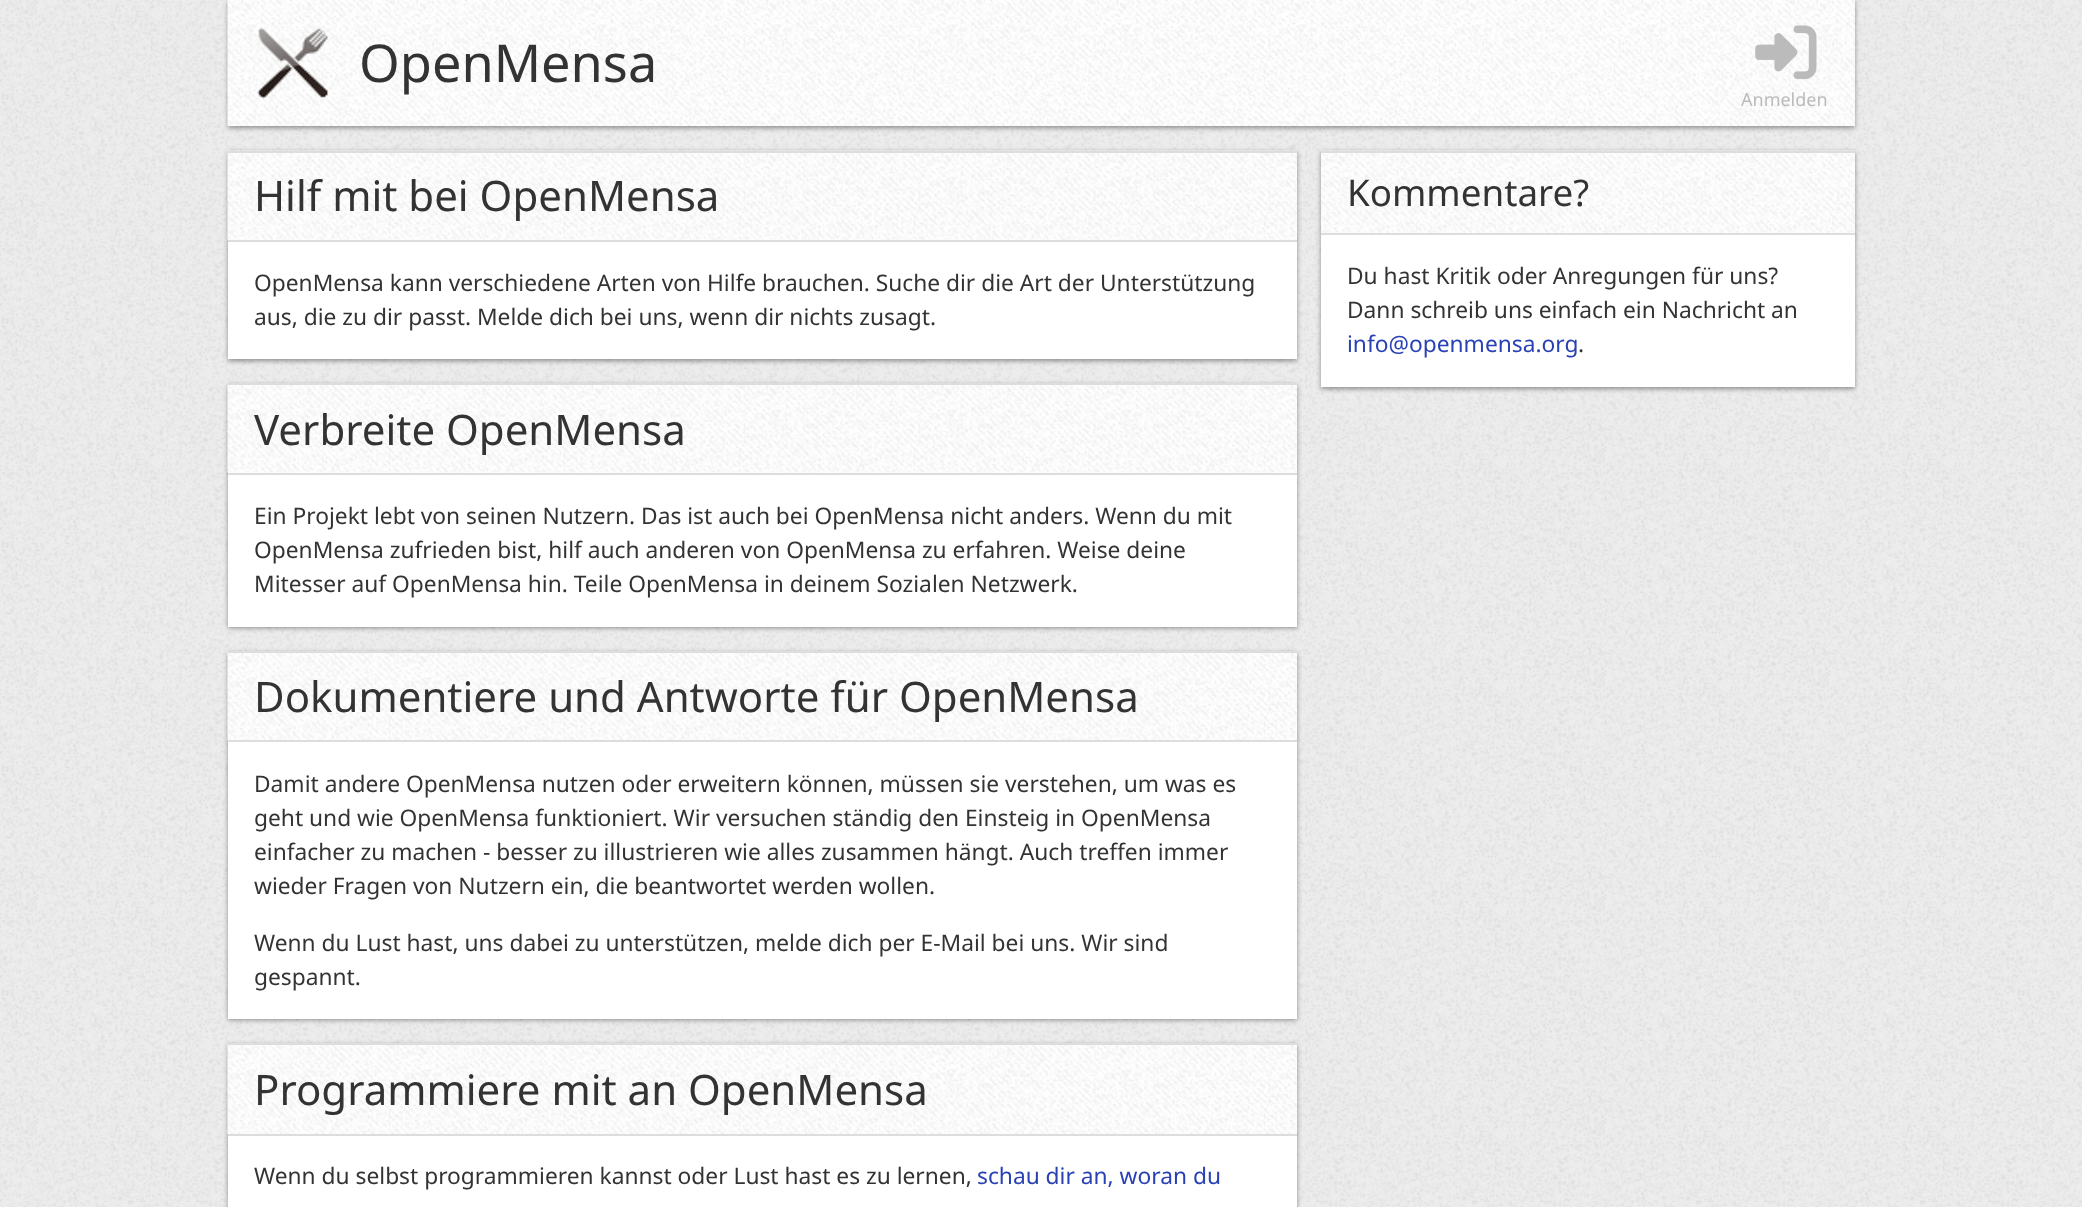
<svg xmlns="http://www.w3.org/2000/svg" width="2082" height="1207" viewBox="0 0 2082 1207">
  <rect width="100%" height="100%" fill="rgb(255,255,255)"/>
  <image x="0" y="0" width="2082" height="1207" href="pic1.png"/>
  <rect x="228" y="2" width="1627" height="126" fill="rgba(0,0,0,0.4)" filter="blur(2.5px)"/>
  <image x="227" y="0" width="1628" height="126" href="pic2.png"/>
  <image x="249" y="27" width="79" height="72" href="pic3.png"/>
  <text x="359" y="82" font-family="Noto Sans" font-size="52.25" fill="rgb(51,51,51)">OpenMensa</text>
  <image x="1755" y="25" width="62" height="55" href="pic4.png"/>
  <text x="1741" y="106" font-family="Noto Sans" font-size="18" fill="rgb(187,187,187)">Anmelden</text>
  <rect x="228" y="152" width="1069" height="209" fill="rgba(0,0,0,0.4)" filter="blur(2.5px)"/>
  <rect x="228" y="153" width="1069" height="206" fill="rgb(255,255,255)"/>
  <image x="227" y="150" width="1070" height="90" href="pic5.png"/>
  <rect x="228" y="151" width="1069" height="2" fill="rgb(221,221,221)"/>
  <text x="254" y="211" font-family="Noto Sans" font-size="42" fill="rgb(51,51,51)">Hilf mit bei OpenMensa</text>
  <rect x="228" y="240" width="1069" height="2" fill="rgb(221,221,221)"/>
  <g font-family="Noto Sans" font-size="22.75" fill="rgb(51,51,51)">
    <text>
      <tspan x="254" y="291">OpenMensa kann verschiedene Arten von Hilfe brauchen. Suche dir die Art der Unterstützung</tspan>
      <tspan x="254" y="325">aus, die zu dir passt. Melde dich bei uns, wenn dir nichts zusagt.</tspan>
    </text>
  </g>
  <rect x="228" y="385" width="1069" height="243" fill="rgba(0,0,0,0.4)" filter="blur(2.5px)"/>
  <rect x="228" y="385" width="1069" height="242" fill="rgb(255,255,255)"/>
  <image x="227" y="383" width="1070" height="90" href="pic6.png"/>
  <rect x="228" y="383" width="1069" height="2" fill="rgb(221,221,221)"/>
  <text x="254" y="445" font-family="Noto Sans" font-size="42" fill="rgb(51,51,51)">Verbreite OpenMensa</text>
  <rect x="228" y="473" width="1069" height="2" fill="rgb(221,221,221)"/>
  <g font-family="Noto Sans" font-size="22.75" fill="rgb(51,51,51)">
    <text>
      <tspan x="254" y="524">Ein Projekt lebt von seinen Nutzern. Das ist auch bei OpenMensa nicht anders. Wenn du mit</tspan>
      <tspan x="254" y="558">OpenMensa zufrieden bist, hilf auch anderen von OpenMensa zu erfahren. Weise deine</tspan>
      <tspan x="254" y="592">Mitesser auf OpenMensa hin. Teile OpenMensa in deinem Sozialen Netzwerk.</tspan>
    </text>
  </g>
  <rect x="228" y="653" width="1069" height="367" fill="rgba(0,0,0,0.4)" filter="blur(2.5px)"/>
  <rect x="228" y="653" width="1069" height="366" fill="rgb(255,255,255)"/>
  <image x="227" y="651" width="1070" height="90" href="pic7.png"/>
  <rect x="228" y="651" width="1069" height="2" fill="rgb(221,221,221)"/>
  <text x="254" y="712" font-family="Noto Sans" font-size="42" fill="rgb(51,51,51)">Dokumentiere und Antworte für OpenMensa</text>
  <rect x="228" y="740" width="1069" height="2" fill="rgb(221,221,221)"/>
  <g font-family="Noto Sans" font-size="22.75" fill="rgb(51,51,51)">
    <text>
      <tspan x="254" y="792">Damit andere OpenMensa nutzen oder erweitern können, müssen sie verstehen, um was es</tspan>
      <tspan x="254" y="826">geht und wie OpenMensa funktioniert. Wir versuchen ständig den Einsteig in OpenMensa</tspan>
      <tspan x="254" y="860">einfacher zu machen - besser zu illustrieren wie alles zusammen hängt. Auch treffen immer</tspan>
      <tspan x="254" y="894">wieder Fragen von Nutzern ein, die beantwortet werden wollen.</tspan>
    </text>
    <text>
      <tspan x="254" y="951">Wenn du Lust hast, uns dabei zu unterstützen, melde dich per E-Mail bei uns. Wir sind</tspan>
      <tspan x="254" y="985">gespannt.</tspan>
    </text>
  </g>
  <rect x="228" y="1045" width="1069" height="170" fill="rgba(0,0,0,0.4)" filter="blur(2.5px)"/>
  <rect x="228" y="1045" width="1069" height="162" fill="rgb(255,255,255)"/>
  <image x="227" y="1043" width="1070" height="91" href="pic8.png"/>
  <rect x="228" y="1043" width="1069" height="2" fill="rgb(221,221,221)"/>
  <text x="254" y="1105" font-family="Noto Sans" font-size="42" fill="rgb(51,51,51)">Programmiere mit an OpenMensa</text>
  <rect x="228" y="1134" width="1069" height="2" fill="rgb(221,221,221)"/>
  <text x="254" y="1184" font-family="Noto Sans" font-size="22.75" fill="rgb(51,51,51)">Wenn du selbst programmieren kannst oder Lust hast es zu lernen,</text>
  <text x="977" y="1184" font-family="Noto Sans" font-size="22.75" fill="rgb(41,65,180)">schau dir an, woran du</text>
  <rect x="1321" y="152" width="534" height="237" fill="rgba(0,0,0,0.4)" filter="blur(2.5px)"/>
  <rect x="1321" y="153" width="534" height="234" fill="rgb(255,255,255)"/>
  <image x="1321" y="150" width="534" height="83" href="pic9.png"/>
  <rect x="1321" y="151" width="534" height="2" fill="rgb(221,221,221)"/>
  <text x="1347" y="206" font-family="Noto Sans" font-size="36.75" fill="rgb(51,51,51)">Kommentare?</text>
  <rect x="1321" y="233" width="534" height="2" fill="rgb(221,221,221)"/>
  <g font-family="Noto Sans" font-size="22.75" fill="rgb(51,51,51)">
    <text>
      <tspan x="1347" y="284">Du hast Kritik oder Anregungen für uns?</tspan>
      <tspan x="1347" y="318">Dann schreib uns einfach ein Nachricht an</tspan>
    </text>
  </g>
  <text x="1347" y="352" font-family="Noto Sans" font-size="22.75" fill="rgb(41,65,180)">info@openmensa.org</text>
  <text x="1578" y="352" font-family="Noto Sans" font-size="22.75" fill="rgb(51,51,51)">.</text>
</svg>
